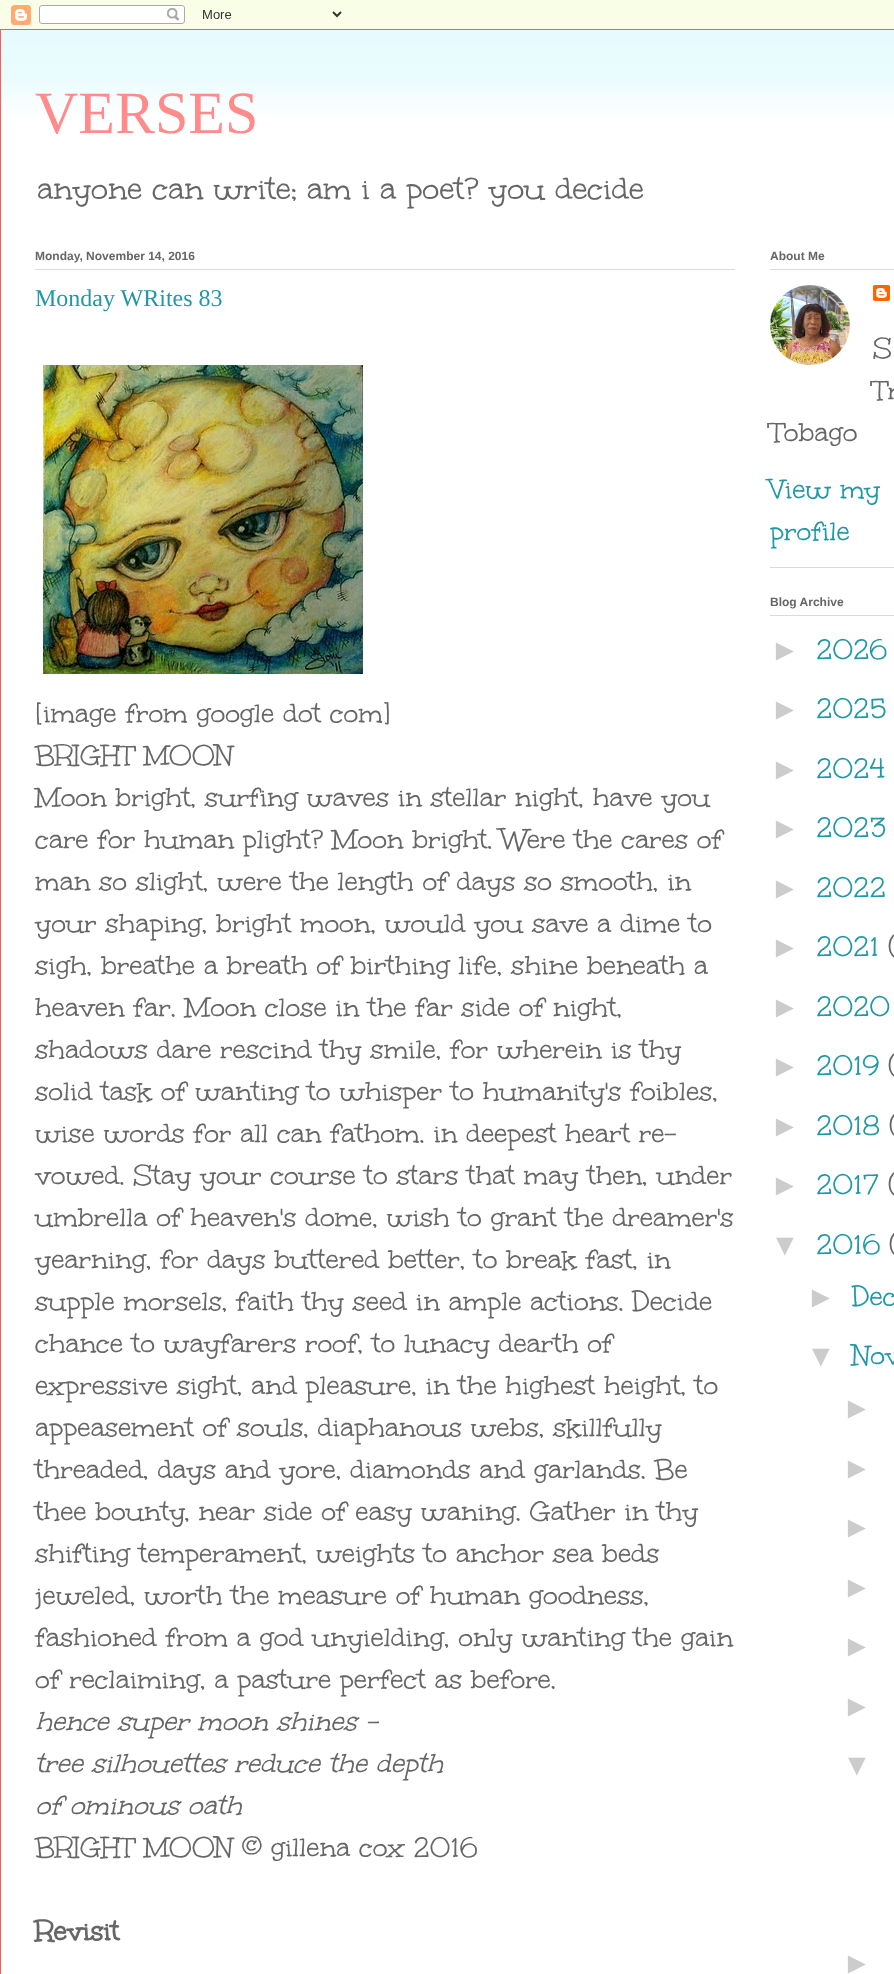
<svg xmlns="http://www.w3.org/2000/svg" width="894" height="1974" viewBox="0 0 894 1974">
  <rect width="100%" height="100%" fill="rgb(255,255,255)"/>
  <image x="0" y="0" width="894" height="29" href="pic1.png"/>
  <image x="0" y="0" width="894" height="30" href="pic2.png"/>
  <image x="1" y="30" width="893" height="84" href="pic3.png"/>
  <rect x="0" y="30" width="1" height="1944" fill="rgb(251,94,83)"/>
  <text x="35" y="133" font-family="Liberation Serif" font-size="60" fill="rgb(255,139,139)">VERSES</text>
  <text x="37" y="201" font-family="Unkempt" font-size="34.5" fill="rgb(102,102,102)">anyone can write; am i a poet? you decide</text>
  <rect x="35" y="269" width="700" height="1" fill="rgb(219,219,219)"/>
  <text x="35" y="260" font-family="Liberation Sans" font-size="12" font-weight="bold" fill="rgb(102,102,102)">Monday, November 14, 2016</text>
  <text x="35" y="306" font-family="Liberation Serif" font-size="24" fill="rgb(33,152,166)">Monday WRites 83</text>
  <image x="43" y="365" width="320" height="309" href="pic4.png"/>
  <g font-family="Unkempt" font-size="30" fill="rgb(102,102,102)">
    <text>
      <tspan x="35" y="724">[image from google dot com]</tspan>
      <tspan x="35" y="766">BRIGHT MOON</tspan>
      <tspan x="35" y="808">Moon bright, surfing waves in stellar night, have you</tspan>
      <tspan x="35" y="850">care for human plight? Moon bright. Were the cares of</tspan>
      <tspan x="35" y="892">man so slight, were the length of days so smooth, in</tspan>
      <tspan x="35" y="934">your shaping, bright moon, would you save a dime to</tspan>
      <tspan x="35" y="976">sigh, breathe a breath of birthing life, shine beneath a</tspan>
      <tspan x="35" y="1018">heaven far. Moon close in the far side of night,</tspan>
      <tspan x="35" y="1060">shadows dare rescind thy smile, for wherein is thy</tspan>
      <tspan x="35" y="1102">solid task of wanting to whisper to humanity's foibles,</tspan>
      <tspan x="35" y="1144">wise words for all can fathom. in deepest heart re-</tspan>
      <tspan x="35" y="1186">vowed. Stay your course to stars that may then, under</tspan>
      <tspan x="35" y="1228">umbrella of heaven's dome, wish to grant the dreamer's</tspan>
      <tspan x="35" y="1270">yearning, for days buttered better, to break fast, in</tspan>
      <tspan x="35" y="1312">supple morsels, faith thy seed in ample actions. Decide</tspan>
      <tspan x="35" y="1354">chance to wayfarers roof, to lunacy dearth of</tspan>
      <tspan x="35" y="1396">expressive sight, and pleasure, in the highest height, to</tspan>
      <tspan x="35" y="1438">appeasement of souls, diaphanous webs, skillfully</tspan>
      <tspan x="35" y="1480">threaded, days and yore, diamonds and garlands. Be</tspan>
      <tspan x="35" y="1522">thee bounty, near side of easy waning. Gather in thy</tspan>
      <tspan x="35" y="1564">shifting temperament, weights to anchor sea beds</tspan>
      <tspan x="35" y="1606">jeweled, worth the measure of human goodness,</tspan>
      <tspan x="35" y="1648">fashioned from a god unyielding, only wanting the gain</tspan>
      <tspan x="35" y="1690">of reclaiming, a pasture perfect as before.</tspan>
    </text>
  </g>
  <g font-family="Unkempt" font-size="30" font-style="italic" fill="rgb(102,102,102)">
    <text>
      <tspan x="35" y="1732">hence super moon shines -</tspan>
      <tspan x="35" y="1774">tree silhouettes reduce the depth</tspan>
      <tspan x="35" y="1816">of ominous oath</tspan>
    </text>
  </g>
  <text x="35" y="1858" font-family="Unkempt" font-size="30" fill="rgb(102,102,102)">BRIGHT MOON © gillena cox 2016</text>
  <text x="35" y="1942" font-family="Unkempt" font-size="30" font-weight="bold" fill="rgb(102,102,102)">Revisit</text>
  <rect x="770" y="567" width="124" height="1" fill="rgb(219,219,219)"/>
  <rect x="770" y="269" width="124" height="1" fill="rgb(219,219,219)"/>
  <text x="770" y="260" font-family="Liberation Sans" font-size="12" font-weight="bold" fill="rgb(102,102,102)">About Me</text>
  <image x="770" y="285" width="80" height="80" href="pic5.png"/>
  <image x="873" y="285" width="17" height="16" href="pic6.png"/>
  <g font-family="Unkempt" font-size="30" fill="rgb(102,102,102)">
    <text>
      <tspan x="873" y="359">S</tspan>
      <tspan x="873" y="401">Tr</tspan>
    </text>
    <text x="770" y="443">Tobago</text>
  </g>
  <g font-family="Unkempt" font-size="30" fill="rgb(33,152,166)">
    <text>
      <tspan x="770" y="500">View my</tspan>
      <tspan x="770" y="542">profile</tspan>
    </text>
  </g>
  <rect x="770" y="615" width="124" height="1" fill="rgb(219,219,219)"/>
  <text x="770" y="606" font-family="Liberation Sans" font-size="12" font-weight="bold" fill="rgb(102,102,102)">Blog Archive</text>
  <text x="770" y="660" font-family="Liberation Sans" font-size="30" fill="rgb(204,204,204)">►</text>
  <text x="816" y="660" font-family="Unkempt" font-size="30" fill="rgb(33,152,166)">2026</text>
  <text x="770" y="719" font-family="Liberation Sans" font-size="30" fill="rgb(204,204,204)">►</text>
  <text x="816" y="719" font-family="Unkempt" font-size="30" fill="rgb(33,152,166)">2025</text>
  <text x="770" y="779" font-family="Liberation Sans" font-size="30" fill="rgb(204,204,204)">►</text>
  <text x="816" y="779" font-family="Unkempt" font-size="30" fill="rgb(33,152,166)">2024</text>
  <text x="770" y="838" font-family="Liberation Sans" font-size="30" fill="rgb(204,204,204)">►</text>
  <text x="816" y="838" font-family="Unkempt" font-size="30" fill="rgb(33,152,166)">2023</text>
  <text x="770" y="898" font-family="Liberation Sans" font-size="30" fill="rgb(204,204,204)">►</text>
  <text x="816" y="898" font-family="Unkempt" font-size="30" fill="rgb(33,152,166)">2022</text>
  <text x="770" y="957" font-family="Liberation Sans" font-size="30" fill="rgb(204,204,204)">►</text>
  <text x="816" y="957" font-family="Unkempt" font-size="30" fill="rgb(33,152,166)">2021</text>
  <text x="888" y="957" font-family="Unkempt" font-size="30" fill="rgb(102,102,102)">(</text>
  <text x="770" y="1017" font-family="Liberation Sans" font-size="30" fill="rgb(204,204,204)">►</text>
  <text x="816" y="1017" font-family="Unkempt" font-size="30" fill="rgb(33,152,166)">2020</text>
  <text x="770" y="1076" font-family="Liberation Sans" font-size="30" fill="rgb(204,204,204)">►</text>
  <text x="816" y="1076" font-family="Unkempt" font-size="30" fill="rgb(33,152,166)">2019</text>
  <text x="888" y="1076" font-family="Unkempt" font-size="30" fill="rgb(102,102,102)">(</text>
  <text x="770" y="1136" font-family="Liberation Sans" font-size="30" fill="rgb(204,204,204)">►</text>
  <text x="816" y="1136" font-family="Unkempt" font-size="30" fill="rgb(33,152,166)">2018</text>
  <text x="889" y="1136" font-family="Unkempt" font-size="30" fill="rgb(102,102,102)">(</text>
  <text x="770" y="1195" font-family="Liberation Sans" font-size="30" fill="rgb(204,204,204)">►</text>
  <text x="816" y="1195" font-family="Unkempt" font-size="30" fill="rgb(33,152,166)">2017</text>
  <text x="888" y="1195" font-family="Unkempt" font-size="30" fill="rgb(102,102,102)">(</text>
  <text x="770" y="1255" font-family="Liberation Sans" font-size="30" fill="rgb(204,204,204)">▼</text>
  <text x="816" y="1255" font-family="Unkempt" font-size="30" fill="rgb(33,152,166)">2016</text>
  <text x="889" y="1255" font-family="Unkempt" font-size="30" fill="rgb(102,102,102)">(</text>
  <text x="806" y="1307" font-family="Liberation Sans" font-size="30" fill="rgb(204,204,204)">►</text>
  <text x="852" y="1307" font-family="Unkempt" font-size="30" fill="rgb(33,152,166)">Dec</text>
  <text x="806" y="1366" font-family="Liberation Sans" font-size="30" fill="rgb(204,204,204)">▼</text>
  <text x="852" y="1366" font-family="Unkempt" font-size="30" fill="rgb(33,152,166)">Nov</text>
  <g font-family="Liberation Sans" font-size="30" fill="rgb(204,204,204)">
    <text x="842" y="1418">►</text>
    <text>
      <tspan x="842" y="1478">►</tspan>
      <tspan x="842" y="1537">►</tspan>
    </text>
    <text>
      <tspan x="842" y="1597">►</tspan>
      <tspan x="842" y="1656">►</tspan>
    </text>
    <text>
      <tspan x="842" y="1716">►</tspan>
      <tspan x="842" y="1775">▼</tspan>
    </text>
    <text x="842" y="1973">►</text>
  </g>
</svg>
